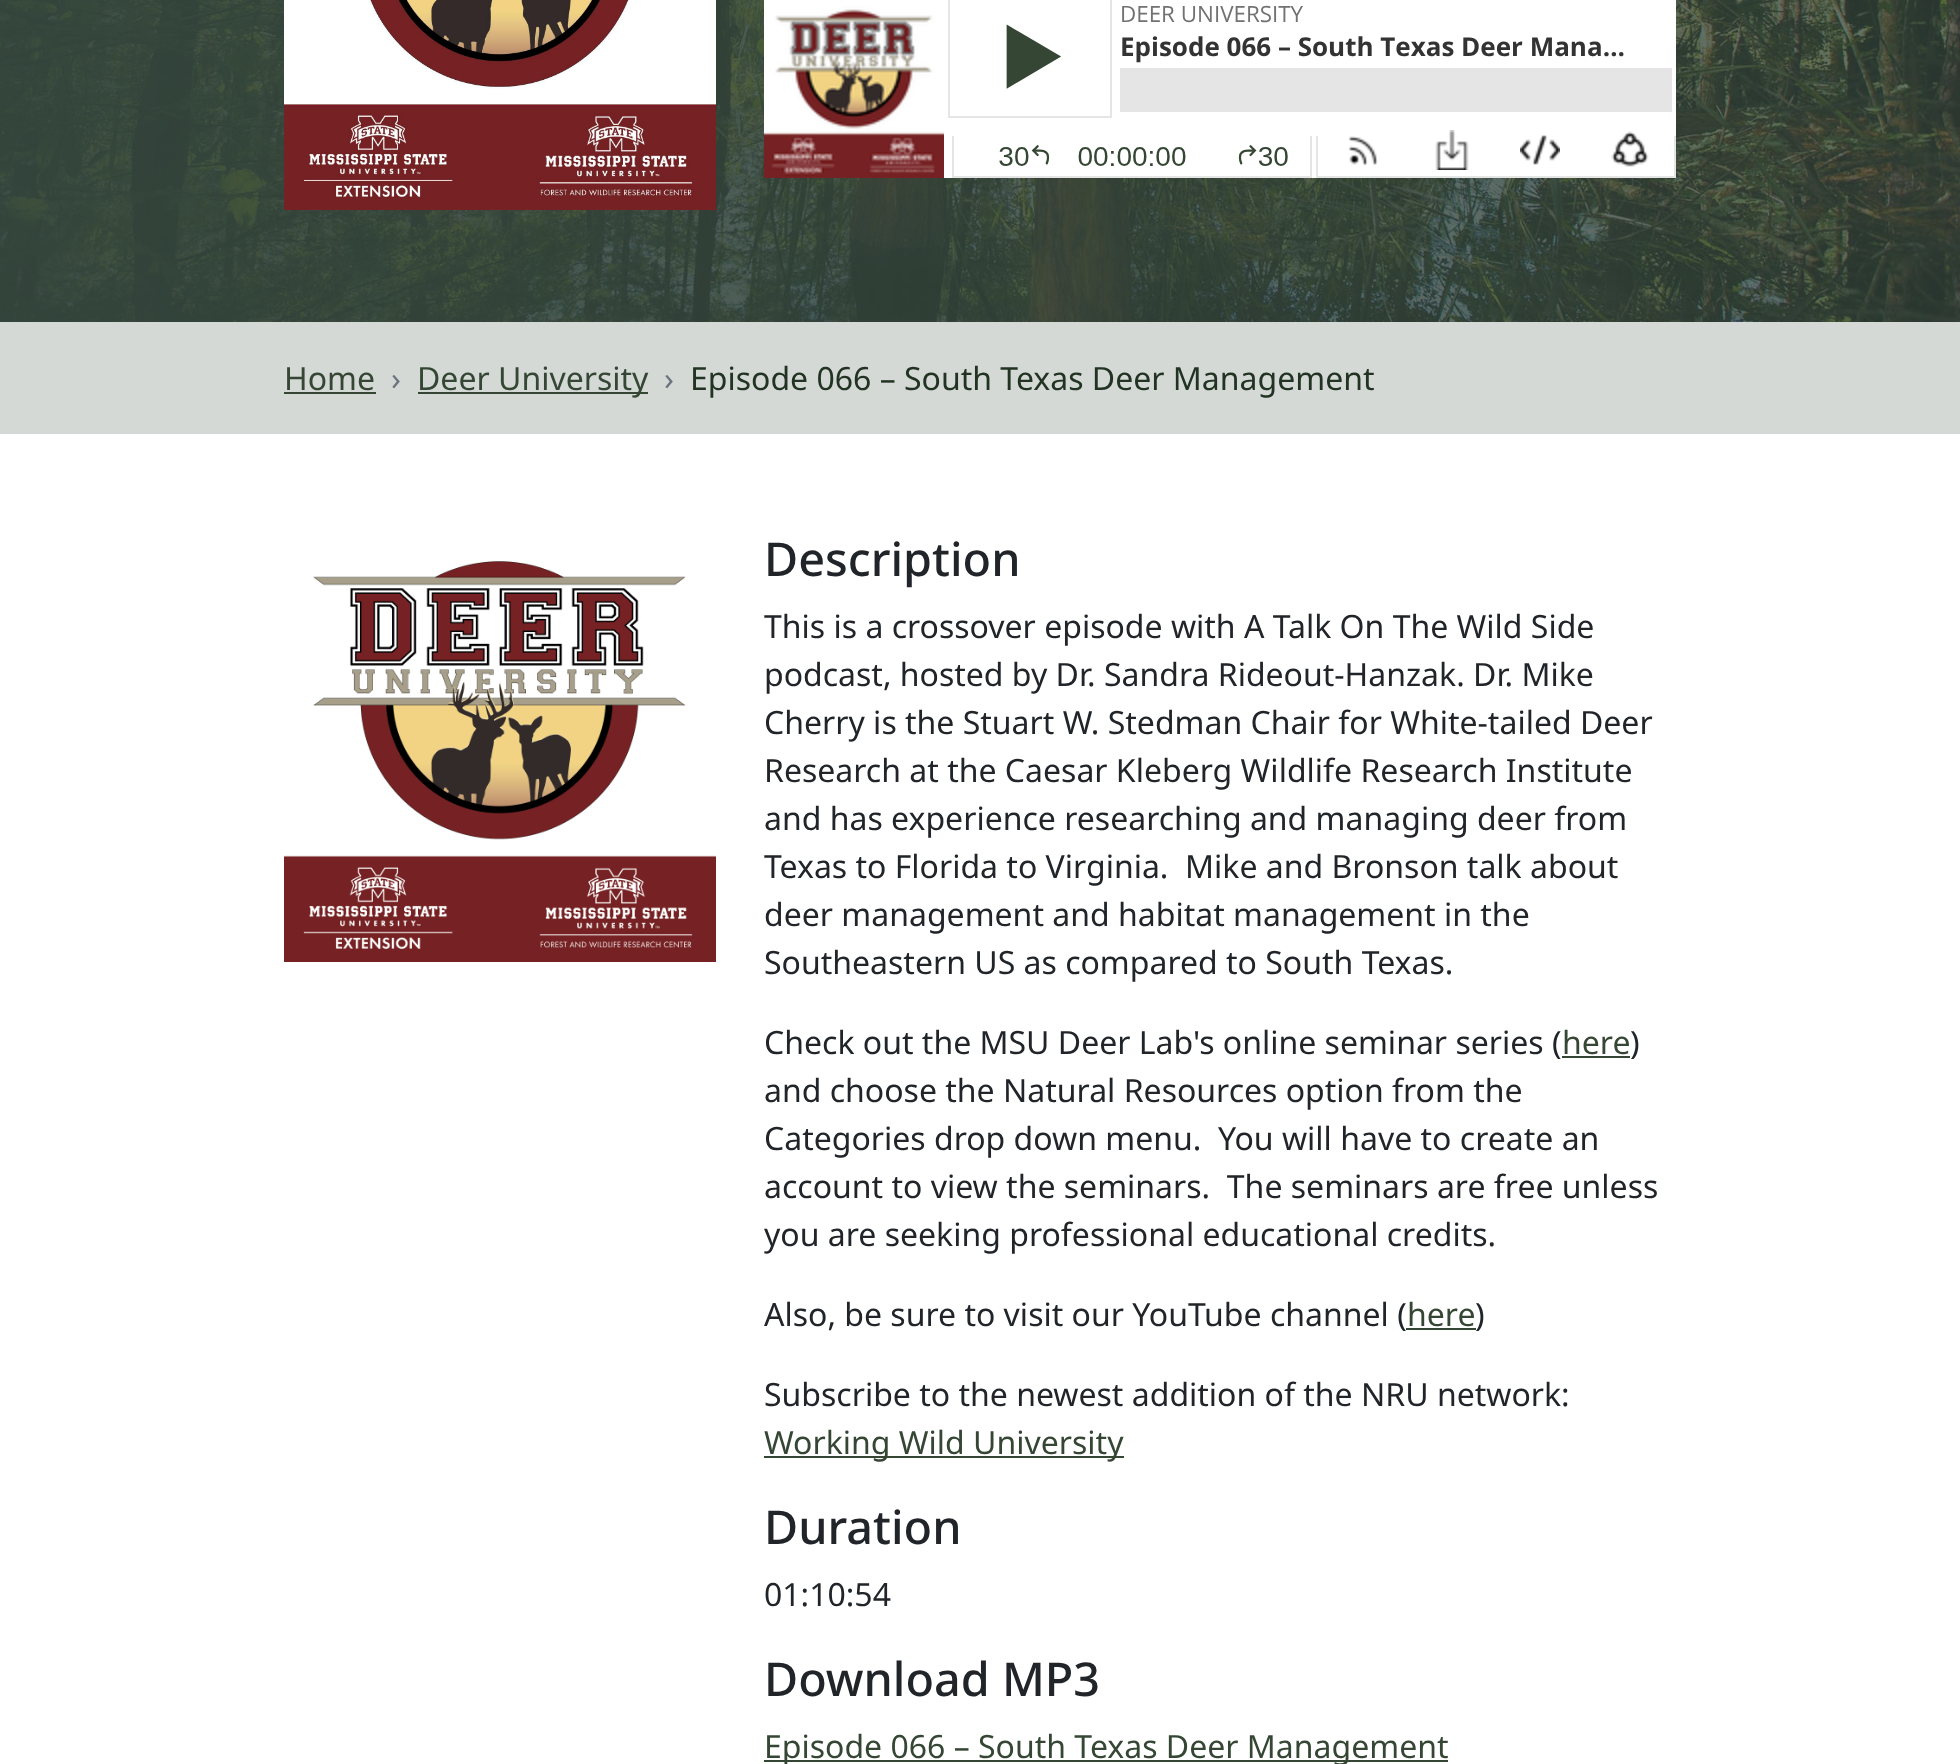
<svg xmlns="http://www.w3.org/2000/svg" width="1960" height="1764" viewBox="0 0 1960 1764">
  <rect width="100%" height="100%" fill="rgb(255,255,255)"/>
  <image x="0" y="0" width="1960" height="322" href="pic1.png"/>
  <image x="284" y="0" width="432" height="210" href="pic2.png"/>
  <image x="764" y="0" width="912" height="178" href="pic3.png"/>
  <rect x="0" y="322" width="1960" height="112" fill="rgb(212,217,214)"/>
  <text x="284" y="390" font-family="Noto Sans" font-size="32" fill="rgb(53,71,52)">Home</text>
  <rect x="284" y="392" width="92" height="2" fill="rgb(53,71,52)"/>
  <text x="391" y="390" font-family="Noto Sans" font-size="32" fill="rgb(108,117,125)">›</text>
  <rect x="418" y="392" width="230" height="2" fill="rgb(53,71,52)"/>
  <text x="417" y="390" font-family="Noto Sans" font-size="32" fill="rgb(53,71,52)">Deer University</text>
  <text x="664" y="390" font-family="Noto Sans" font-size="32" fill="rgb(108,117,125)">›</text>
  <text x="690" y="390" font-family="Noto Sans" font-size="32" fill="rgb(34,51,35)">Episode 066 – South Texas Deer Management</text>
  <image x="284" y="561" width="432" height="401" href="pic4.png"/>
  <text x="764" y="576" font-family="Noto Sans" font-size="46.75" font-weight="500" fill="rgb(33,37,41)">Description</text>
  <g font-family="Noto Sans" font-size="32" fill="rgb(33,37,41)">
    <text xml:space="preserve"><tspan x="764" y="638">This is a crossover episode with A Talk On The Wild Side</tspan><tspan x="764" y="686">podcast, hosted by Dr. Sandra Rideout-Hanzak. Dr. Mike</tspan><tspan x="764" y="734">Cherry is the Stuart W. Stedman Chair for White-tailed Deer</tspan><tspan x="764" y="782">Research at the Caesar Kleberg Wildlife Research Institute</tspan><tspan x="764" y="830">and has experience researching and managing deer from</tspan><tspan x="764" y="878">Texas to Florida to Virginia.  Mike and Bronson talk about</tspan><tspan x="764" y="926">deer management and habitat management in the</tspan><tspan x="764" y="974">Southeastern US as compared to South Texas.</tspan></text>
    <text x="764" y="1054">Check out the MSU Deer Lab's online seminar series (</text>
  </g>
  <text x="1562" y="1054" font-family="Noto Sans" font-size="32" fill="rgb(53,71,52)">here</text>
  <rect x="1562" y="1056" width="68" height="2" fill="rgb(53,71,52)"/>
  <g font-family="Noto Sans" font-size="32" fill="rgb(33,37,41)">
    <text x="1630" y="1054">)</text>
    <text xml:space="preserve"><tspan x="764" y="1102">and choose the Natural Resources option from the</tspan><tspan x="764" y="1150">Categories drop down menu.  You will have to create an</tspan><tspan x="764" y="1198">account to view the seminars.  The seminars are free unless</tspan><tspan x="764" y="1246">you are seeking professional educational credits.</tspan></text>
    <text x="764" y="1326">Also, be sure to visit our YouTube channel (</text>
  </g>
  <text x="1407" y="1326" font-family="Noto Sans" font-size="32" fill="rgb(53,71,52)">here</text>
  <rect x="1406" y="1328" width="70" height="2" fill="rgb(53,71,52)"/>
  <g font-family="Noto Sans" font-size="32" fill="rgb(33,37,41)">
    <text x="1475" y="1326">)</text>
    <text x="764" y="1406">Subscribe to the newest addition of the NRU network:</text>
  </g>
  <rect x="764" y="1456" width="360" height="2" fill="rgb(53,71,52)"/>
  <text x="764" y="1454" font-family="Noto Sans" font-size="32" fill="rgb(53,71,52)">Working Wild University</text>
  <text x="764" y="1544" font-family="Noto Sans" font-size="46.75" font-weight="500" fill="rgb(33,37,41)">Duration</text>
  <text x="764" y="1606" font-family="Noto Sans" font-size="32" fill="rgb(33,37,41)">01:10:54</text>
  <text x="764" y="1696" font-family="Noto Sans" font-size="46.75" font-weight="500" fill="rgb(33,37,41)">Download MP3</text>
  <rect x="764" y="1760" width="684" height="2" fill="rgb(53,71,52)"/>
  <text x="764" y="1758" font-family="Noto Sans" font-size="32" fill="rgb(53,71,52)">Episode 066 – South Texas Deer Management</text>
</svg>
